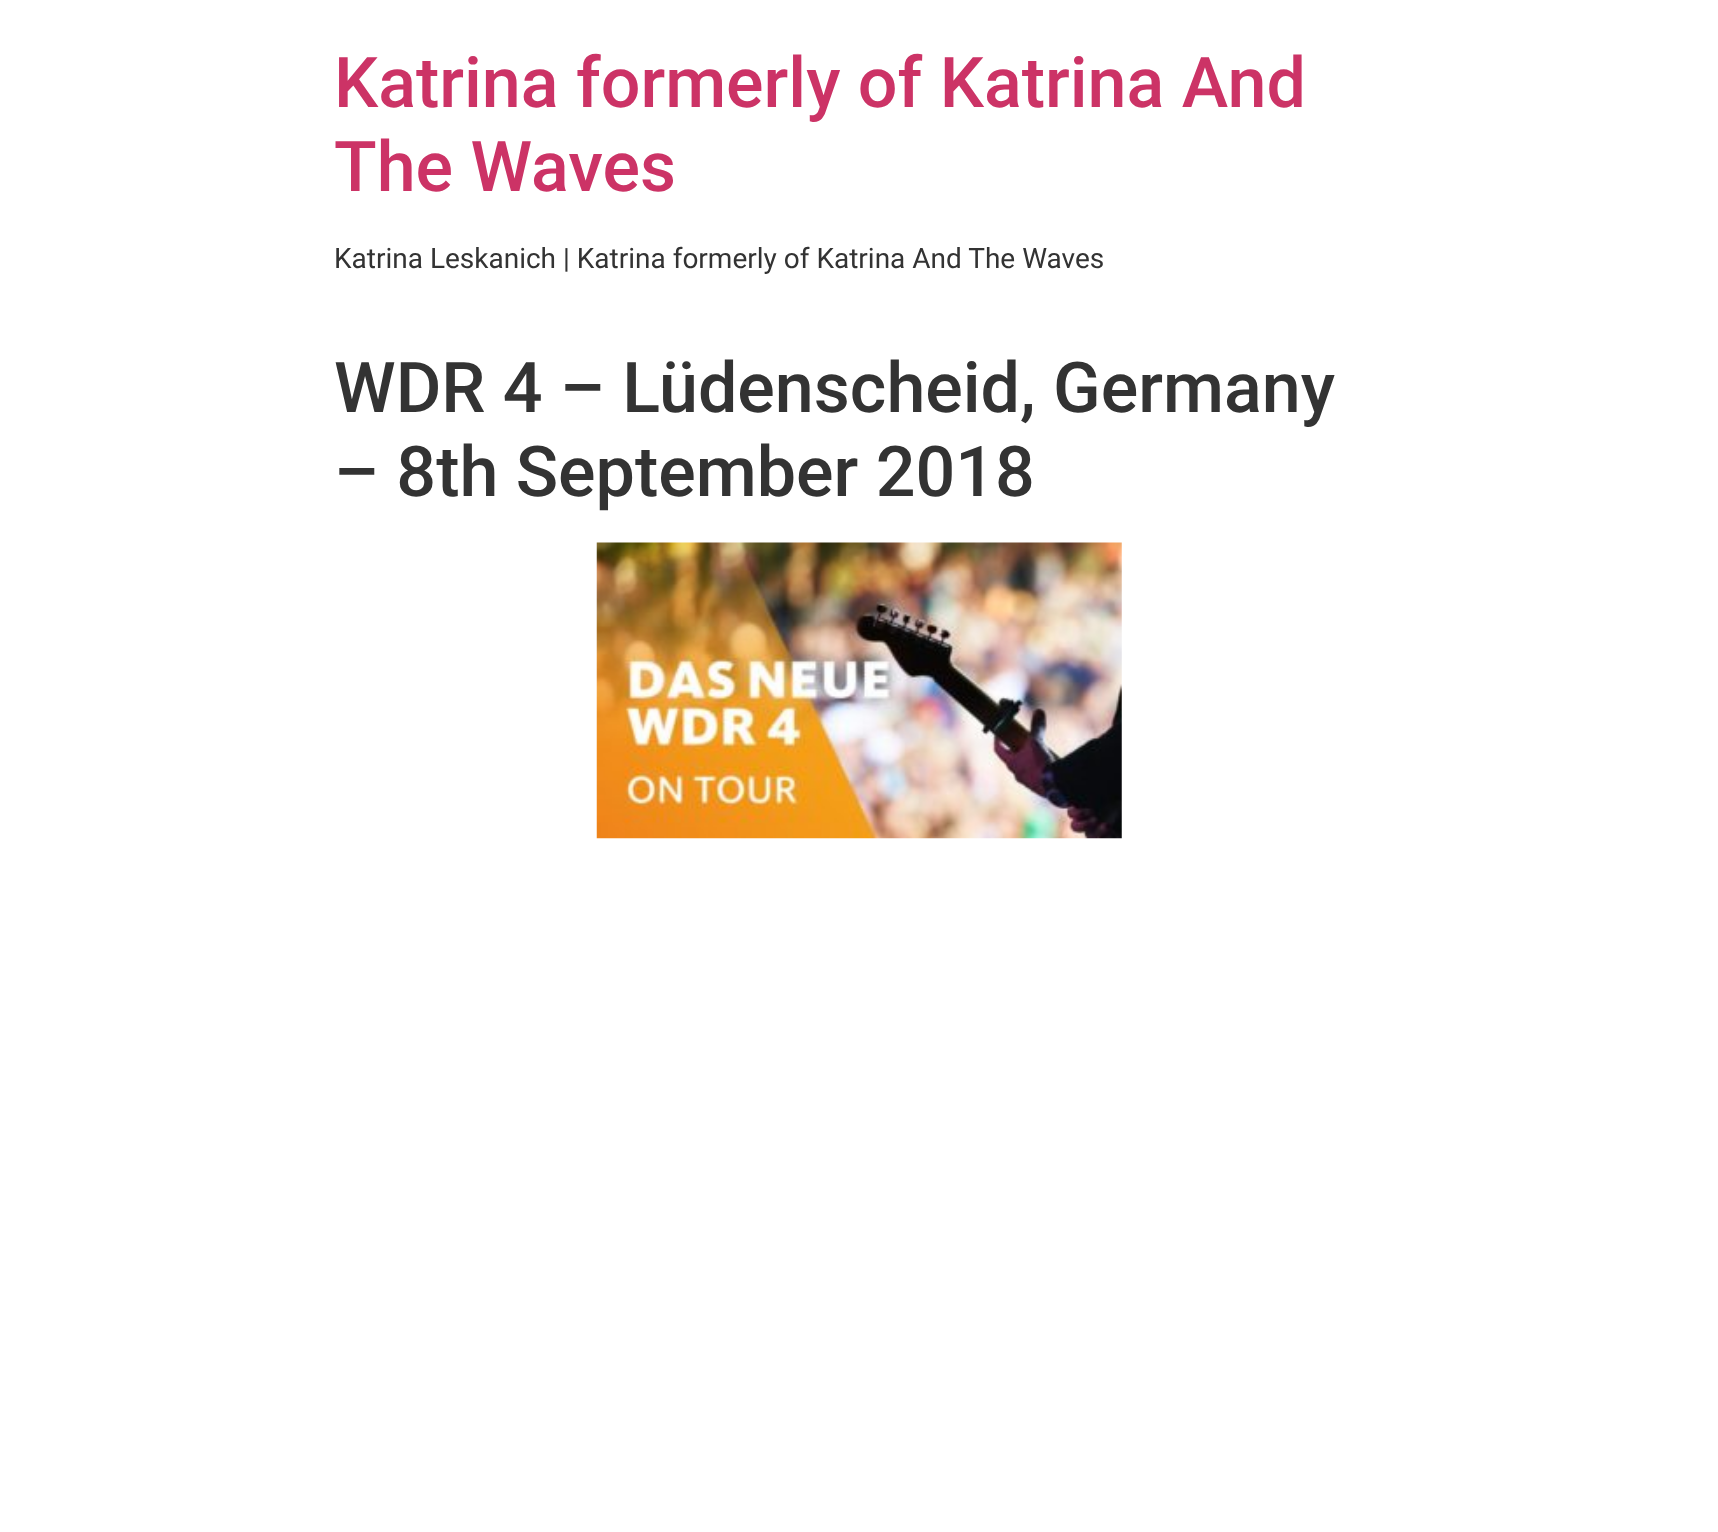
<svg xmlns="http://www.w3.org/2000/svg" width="1718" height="1532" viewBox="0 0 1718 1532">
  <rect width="100%" height="100%" fill="rgb(255,255,255)"/>
  <g font-family="Roboto" font-size="70" font-weight="500" fill="rgb(204,51,102)">
    <text>
      <tspan x="334" y="107">Katrina formerly of Katrina And</tspan>
      <tspan x="334" y="191">The Waves</tspan>
    </text>
  </g>
  <text x="334" y="268" font-family="Roboto" font-size="28" fill="rgb(51,51,51)">Katrina Leskanich | Katrina formerly of Katrina And The Waves</text>
  <g font-family="Roboto" font-size="70" font-weight="500" fill="rgb(51,51,51)">
    <text>
      <tspan x="334" y="412">WDR 4 – Lüdenscheid, Germany</tspan>
      <tspan x="334" y="496">– 8th September 2018</tspan>
    </text>
  </g>
  <image x="596" y="542" width="526" height="297" href="pic1.png"/>
</svg>
